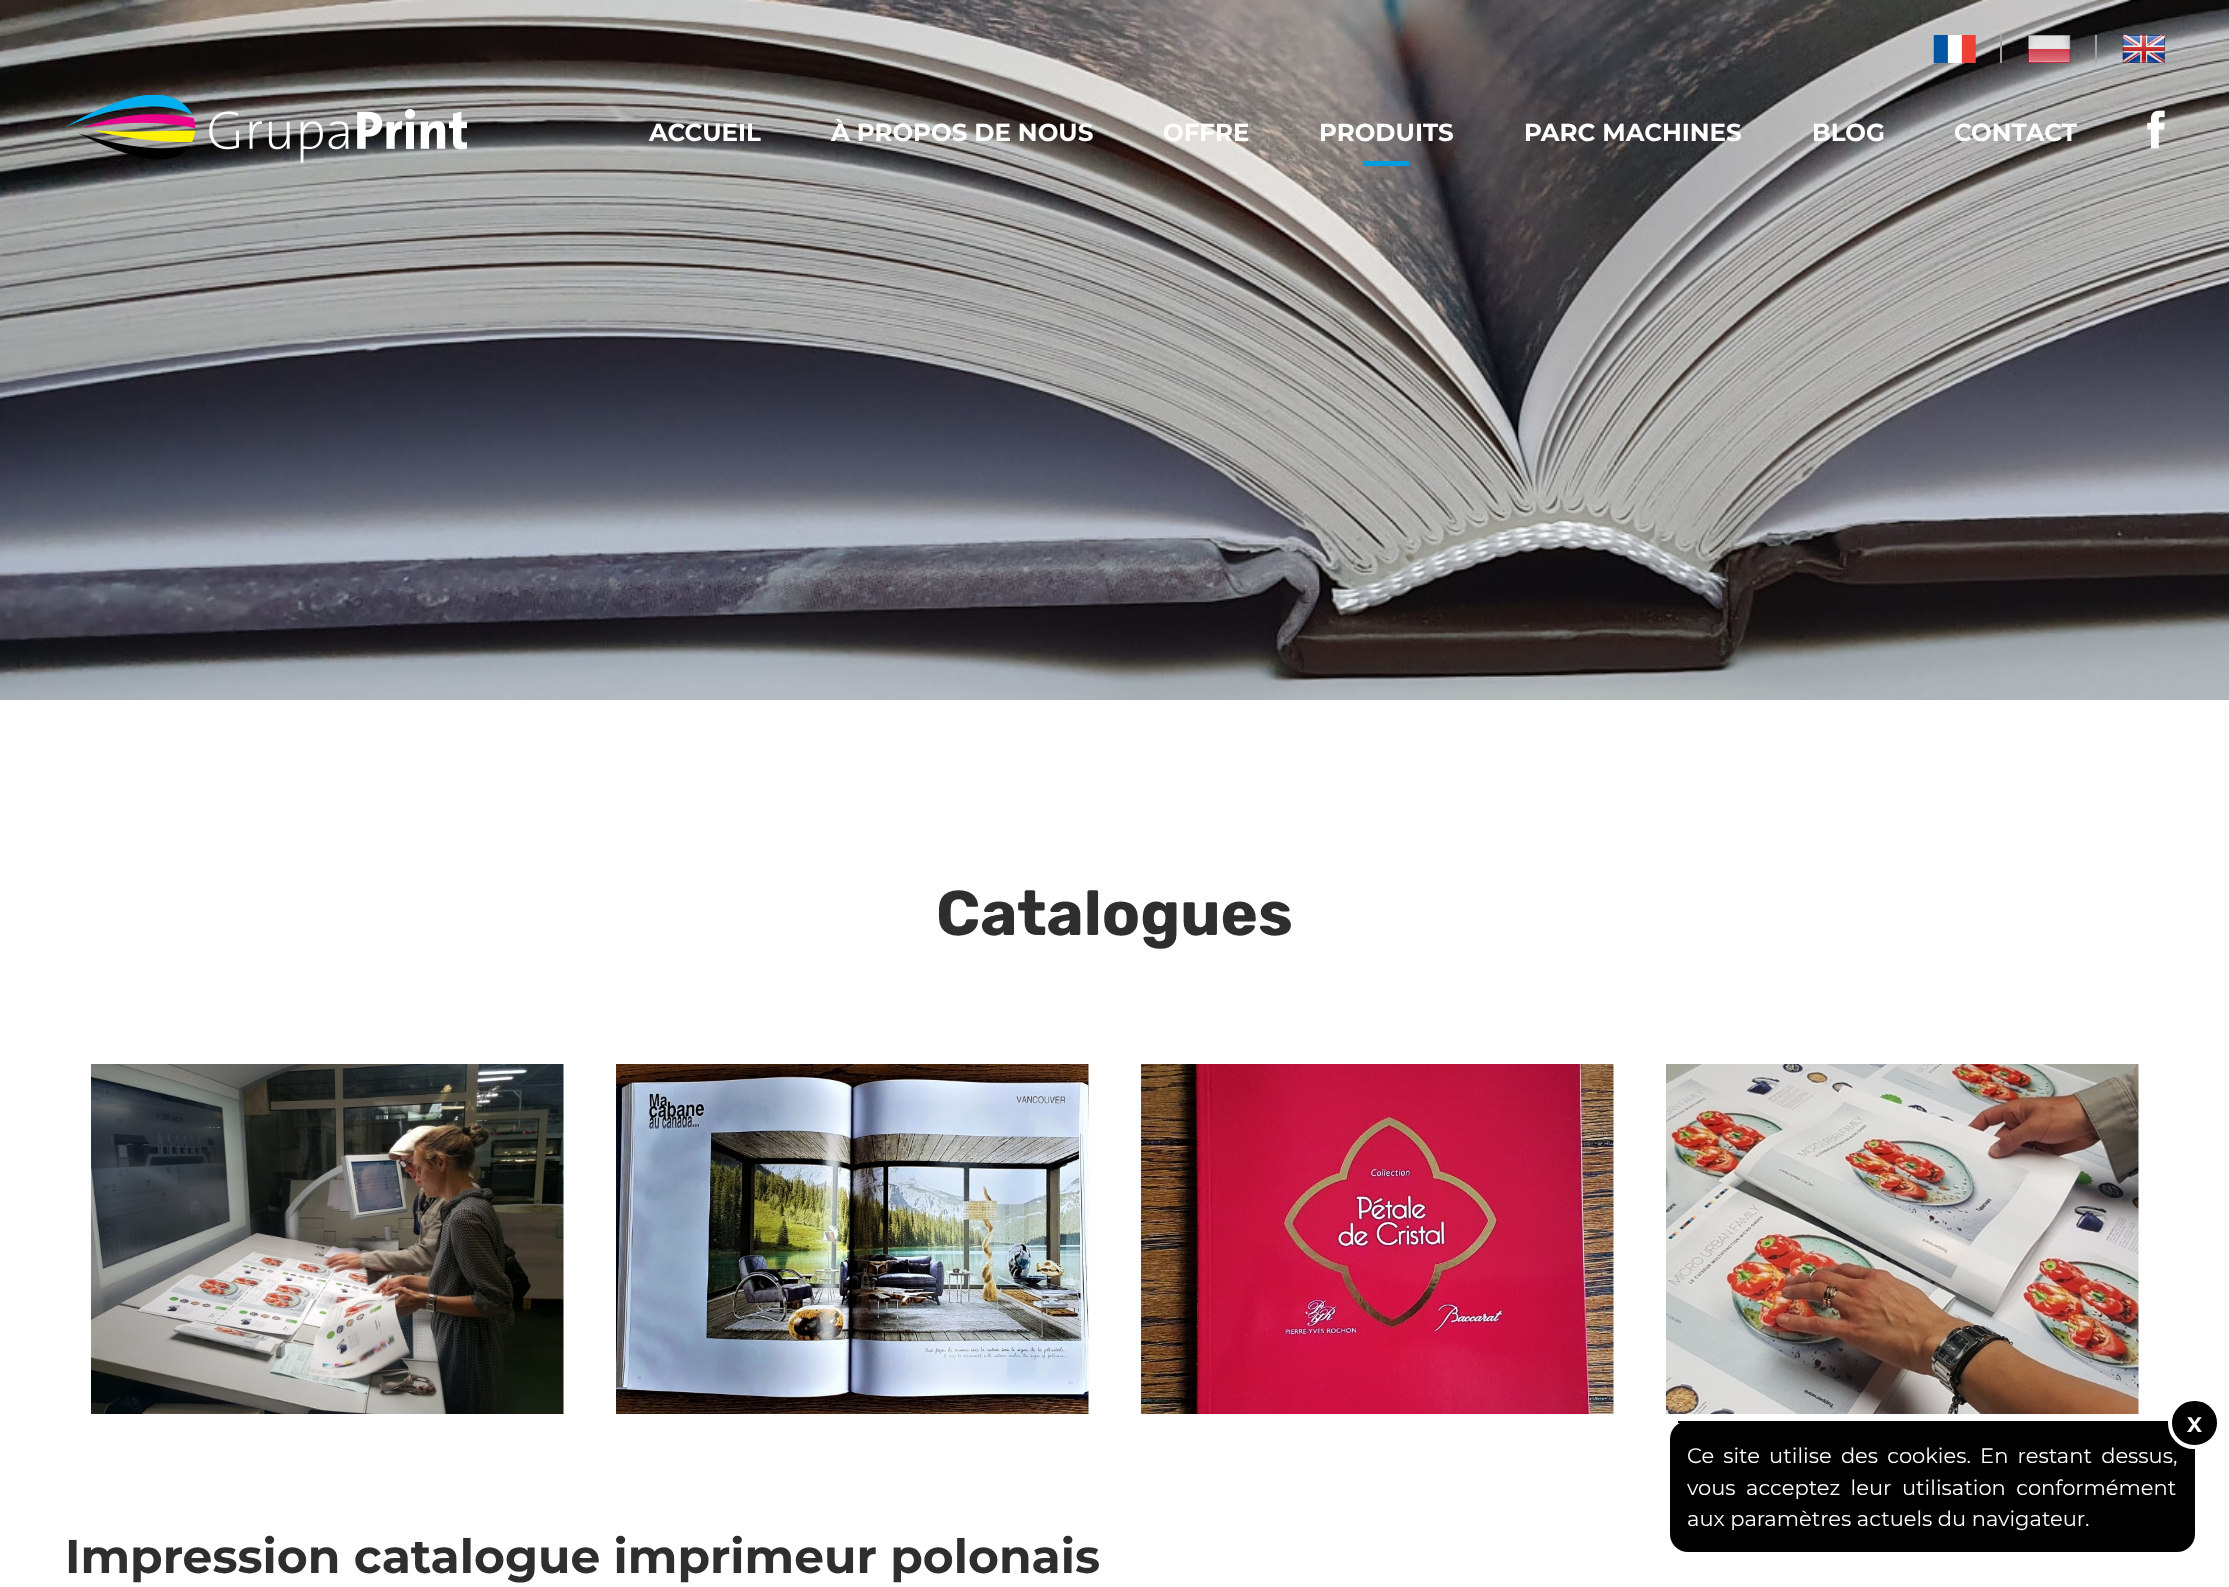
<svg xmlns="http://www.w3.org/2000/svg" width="2229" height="1587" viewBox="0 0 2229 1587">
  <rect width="100%" height="100%" fill="rgb(255,255,255)"/>
  <image x="0" y="0" width="2229" height="700" href="pic1.png"/>
  <image x="1933" y="35" width="43" height="28" href="pic2.png"/>
  <rect x="2000" y="35" width="2" height="28" fill="rgb(161,161,161)"/>
  <image x="2028" y="35" width="43" height="28" href="pic3.png"/>
  <rect x="2095" y="35" width="2" height="28" fill="rgb(161,161,161)"/>
  <image x="2122" y="35" width="43" height="28" href="pic4.png"/>
  <image x="65" y="95" width="402" height="68" href="pic5.png"/>
  <g font-family="Montserrat" font-size="24.5" font-weight="bold" fill="rgb(255,255,255)">
    <text x="649" y="141">ACCUEIL</text>
    <text x="831" y="141">À PROPOS DE NOUS</text>
    <text x="1163" y="141">OFFRE</text>
    <text x="1319" y="141">PRODUITS</text>
  </g>
  <rect x="1363" y="161" width="46" height="5" fill="rgb(0,158,224)"/>
  <g font-family="Montserrat" font-size="24.5" font-weight="bold" fill="rgb(255,255,255)">
    <text x="1524" y="141">PARC MACHINES</text>
    <text x="1812" y="141">BLOG</text>
    <text x="1954" y="141">CONTACT</text>
  </g>
  <image x="2147" y="110" width="18" height="39" href="pic6.png"/>
  <text x="936" y="935" font-family="Rubik" font-size="63" font-weight="bold" fill="rgb(46,46,46)">Catalogues</text>
  <image x="91" y="1064" width="473" height="350" href="pic7.png"/>
  <image x="616" y="1064" width="473" height="350" href="pic8.png"/>
  <image x="1141" y="1064" width="473" height="350" href="pic9.png"/>
  <image x="1666" y="1064" width="473" height="350" href="pic10.png"/>
  <text x="65" y="1573" font-family="Montserrat" font-size="47.25" font-weight="bold" fill="rgb(46,46,46)">Impression catalogue imprimeur polonais</text>
  <rect x="1670" y="1421" width="525" height="131" rx="18" fill="rgb(0,0,0)"/>
  <rect x="1678" y="1421" width="10" height="2" fill="rgb(0,0,0)"/>
  <text x="1687" y="1463" word-spacing="3.75" font-family="Montserrat" font-size="21" fill="rgb(255,255,255)">Ce site utilise des cookies. En restant dessus,</text>
  <rect x="2170" y="1399" width="49" height="48" rx="24" fill="rgb(0,0,0)" stroke="rgb(255,255,255)" stroke-width="4"/>
  <text x="2187" y="1432" font-family="Montserrat" font-size="21" font-weight="bold" fill="rgb(255,255,255)">X</text>
  <g font-family="Montserrat" font-size="21" fill="rgb(255,255,255)">
    <text>
      <tspan x="1687" y="1495" word-spacing="5">vous acceptez leur utilisation conformément</tspan>
      <tspan x="1687" y="1526">aux paramètres actuels du navigateur.</tspan>
    </text>
  </g>
</svg>
